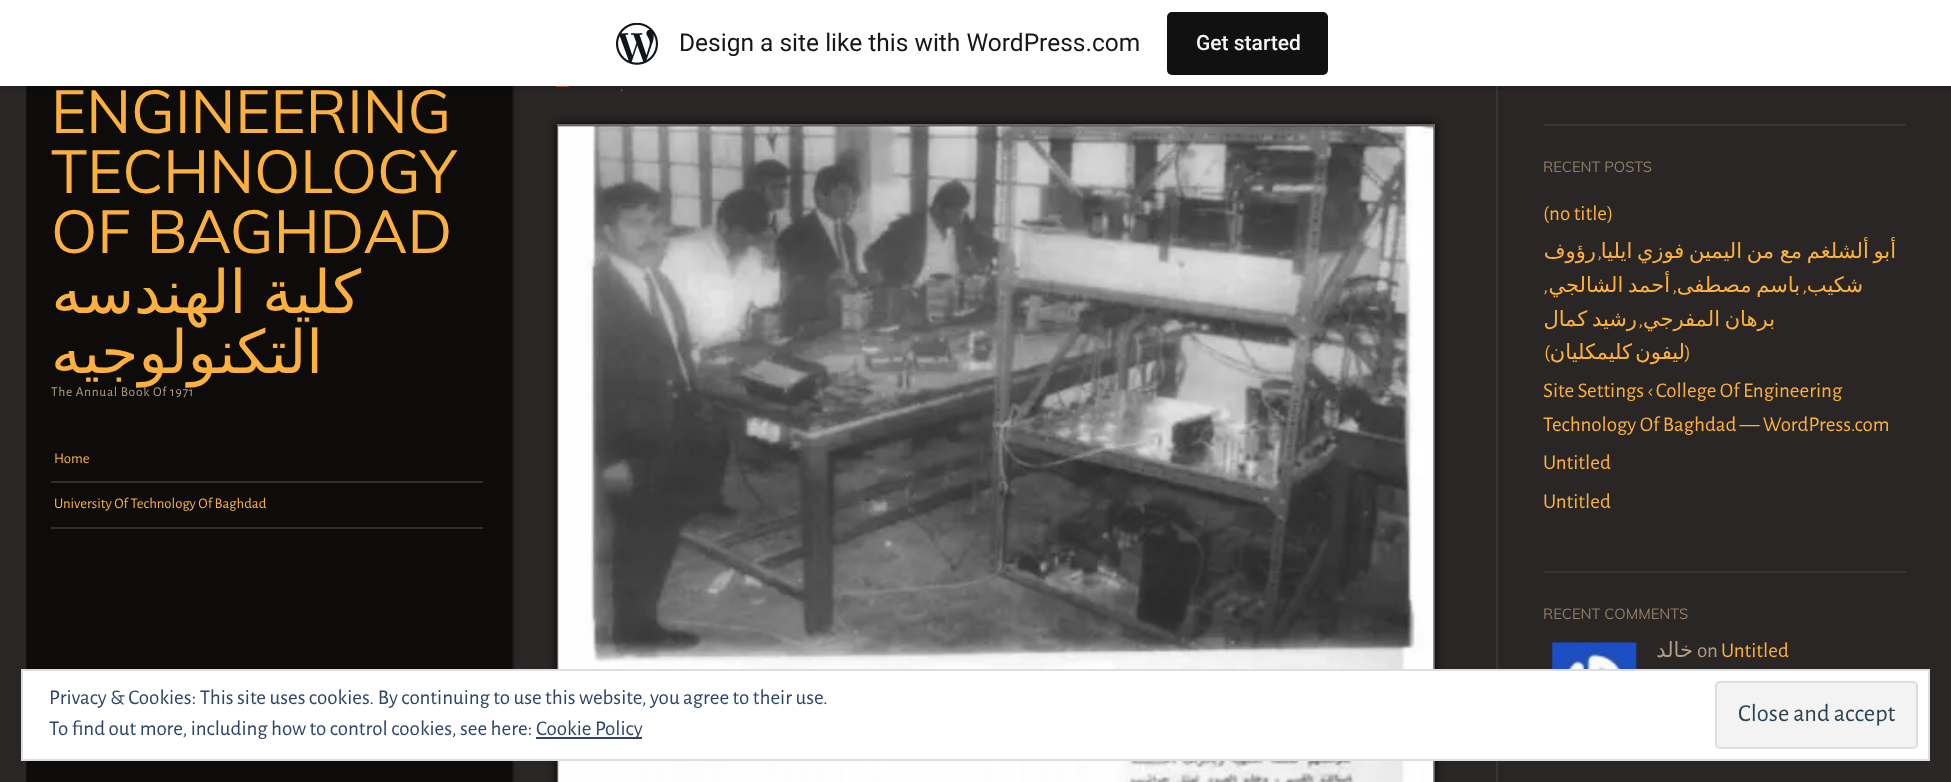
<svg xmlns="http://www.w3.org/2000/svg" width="1951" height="782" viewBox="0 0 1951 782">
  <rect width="100%" height="100%" fill="rgb(41,38,37)"/>
  <image x="26" y="86" width="489" height="696" href="pic2.png"/>
  <rect x="1496" y="86" width="2" height="696" fill="rgb(57,54,54)"/>
  <path d="M2 86V91H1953V5H1951V86Z" fill="rgba(0,0,0,0.08)"/>
  <rect x="0" y="0" width="1951" height="86" fill="rgb(255,255,255)"/>
  <image x="616" y="23" width="42" height="42" href="pic1.png"/>
  <text x="679" y="51" font-family="Roboto" font-size="24.5" fill="rgb(23,23,23)">Design a site like this with WordPress.com</text>
  <rect x="1167" y="12" width="161" height="63" rx="5" fill="rgb(17,17,17)"/>
  <text x="1196" y="50" font-family="Roboto" font-size="21" font-weight="500" fill="rgb(246,247,247)">Get started</text>
  <g font-family="Muli" font-size="60" fill="rgb(252,176,62)">
    <text>
      <tspan x="51" y="133">ENGINEERING</tspan>
      <tspan x="51" y="193">TECHNOLOGY</tspan>
      <tspan x="51" y="253">OF BAGHDAD</tspan>
    </text>
  </g>
  <g font-family="DejaVu Sans" font-size="60" direction="rtl" fill="rgb(252,176,62)">
    <text x="361" y="313" word-spacing="-3">كلية الهندسه</text>
    <text x="323" y="373">التكنولوجيه</text>
  </g>
  <text x="51" y="396" font-family="Alegreya Sans" font-size="13.5" letter-spacing="0.7" fill="rgb(178,157,133)">The Annual Book Of 1971</text>
  <rect x="51" y="481" width="432" height="2" fill="rgb(48,47,45)"/>
  <text x="54" y="463" font-family="Alegreya Sans" font-size="14.75" fill="rgb(252,176,62)">Home</text>
  <rect x="51" y="527" width="432" height="2" fill="rgb(48,47,45)"/>
  <text x="54" y="508" font-family="Alegreya Sans" font-size="14.75" fill="rgb(252,176,62)">University Of Technology Of Baghdad</text>
  <g font-family="Alegreya Sans" font-size="13.5" letter-spacing="0.7" fill="rgb(185,79,37)">
    <text x="556" y="90">—</text>
    <text x="620" y="90">,</text>
  </g>
  <rect x="557" y="124" width="878" height="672" fill="rgba(0,0,0,0.9)" filter="blur(4.5px)"/>
  <rect x="558" y="125" width="876" height="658" fill="none" stroke="rgb(102,102,102)" stroke-width="2"/>
  <image x="558" y="126" width="876" height="656" href="pic3.png"/>
  <rect x="1544" y="124" width="362" height="2" fill="rgb(57,54,54)"/>
  <text x="1543" y="172" font-family="Muli" font-size="14.75" fill="rgb(146,126,102)">RECENT POSTS</text>
  <text x="1543" y="220" font-family="Alegreya Sans" font-size="21" fill="rgb(252,176,62)">(no title)</text>
  <text x="1596" y="258" font-family="DejaVu Sans" font-size="21" direction="rtl" fill="rgb(252,176,62)">رؤوف</text>
  <text x="1602" y="258" font-family="Alegreya Sans" font-size="21" direction="rtl" fill="rgb(252,176,62)">,</text>
  <g font-family="DejaVu Sans" font-size="21" direction="rtl" fill="rgb(252,176,62)">
    <text x="1774" y="258" word-spacing="-2">من اليمين فوزي ايليا</text>
    <text x="1896" y="258" word-spacing="-2">أبو ألشلغم مع</text>
  </g>
  <text x="1548" y="292" font-family="Alegreya Sans" font-size="21" direction="rtl" fill="rgb(252,176,62)">,</text>
  <text x="1670" y="292" word-spacing="-2" font-family="DejaVu Sans" font-size="21" direction="rtl" fill="rgb(252,176,62)">أحمد الشالجي</text>
  <text x="1677" y="292" font-family="Alegreya Sans" font-size="21" direction="rtl" fill="rgb(252,176,62)">,</text>
  <text x="1800" y="292" word-spacing="-2" font-family="DejaVu Sans" font-size="21" direction="rtl" fill="rgb(252,176,62)">باسم مصطفى</text>
  <text x="1807" y="292" font-family="Alegreya Sans" font-size="21" direction="rtl" fill="rgb(252,176,62)">,</text>
  <g font-family="DejaVu Sans" font-size="21" direction="rtl" fill="rgb(252,176,62)">
    <text x="1863" y="292">شكيب</text>
    <text x="1637" y="326" word-spacing="-2">رشيد كمال</text>
  </g>
  <text x="1643" y="326" font-family="Alegreya Sans" font-size="21" direction="rtl" fill="rgb(252,176,62)">,</text>
  <text x="1775" y="326" word-spacing="-2" font-family="DejaVu Sans" font-size="21" direction="rtl" fill="rgb(252,176,62)">برهان المفرجي</text>
  <text x="1550" y="359" font-family="Alegreya Sans" font-size="21" direction="rtl" fill="rgb(252,176,62)">)</text>
  <g font-family="DejaVu Sans" font-size="21" direction="rtl" fill="rgb(252,176,62)">
    <text x="1632" y="359">كليمكليان</text>
    <text x="1685" y="359">ليفون</text>
  </g>
  <text x="1691" y="359" font-family="Alegreya Sans" font-size="21" direction="rtl" fill="rgb(252,176,62)">(</text>
  <g font-family="Alegreya Sans" font-size="21" fill="rgb(252,176,62)">
    <text>
      <tspan x="1543" y="397">Site Settings ‹ College Of Engineering</tspan>
      <tspan x="1543" y="431">Technology Of Baghdad — WordPress.com</tspan>
      <tspan x="1543" y="469">Untitled</tspan>
      <tspan x="1543" y="508">Untitled</tspan>
    </text>
  </g>
  <rect x="1544" y="571" width="362" height="2" fill="rgb(57,54,54)"/>
  <text x="1543" y="619" font-family="Muli" font-size="14.75" fill="rgb(146,126,102)">RECENT COMMENTS</text>
  <image x="1552" y="642" width="85" height="27" href="pic4.png"/>
  <text x="1693" y="657" font-family="DejaVu Sans" font-size="21" direction="rtl" fill="rgb(178,157,133)">خالد</text>
  <text x="1697" y="657" font-family="Alegreya Sans" font-size="21" fill="rgb(178,157,133)">on</text>
  <text x="1721" y="657" font-family="Alegreya Sans" font-size="21" fill="rgb(252,176,62)">Untitled</text>
  <rect x="22" y="670" width="1907" height="90" fill="rgb(255,255,255)" stroke="rgb(222,222,222)" stroke-width="2"/>
  <text x="49" y="704" font-family="Alegreya Sans" font-size="21" fill="rgb(46,68,103)">Privacy &amp; Cookies: This site uses cookies. By continuing to use this website, you agree to their use.</text>
  <rect x="1716" y="682" width="201" height="66" rx="4" fill="rgb(243,243,243)" stroke="rgb(222,222,222)" stroke-width="2"/>
  <text x="1738" y="721" font-family="Alegreya Sans" font-size="24.5" fill="rgb(46,68,83)">Close and accept</text>
  <text x="49" y="735" font-family="Alegreya Sans" font-size="21" fill="rgb(46,68,103)">To find out more, including how to control cookies, see here:</text>
  <rect x="536" y="737" width="106" height="2" fill="rgb(46,68,103)"/>
  <text x="536" y="735" font-family="Alegreya Sans" font-size="21" fill="rgb(46,68,103)">Cookie Policy</text>
</svg>
